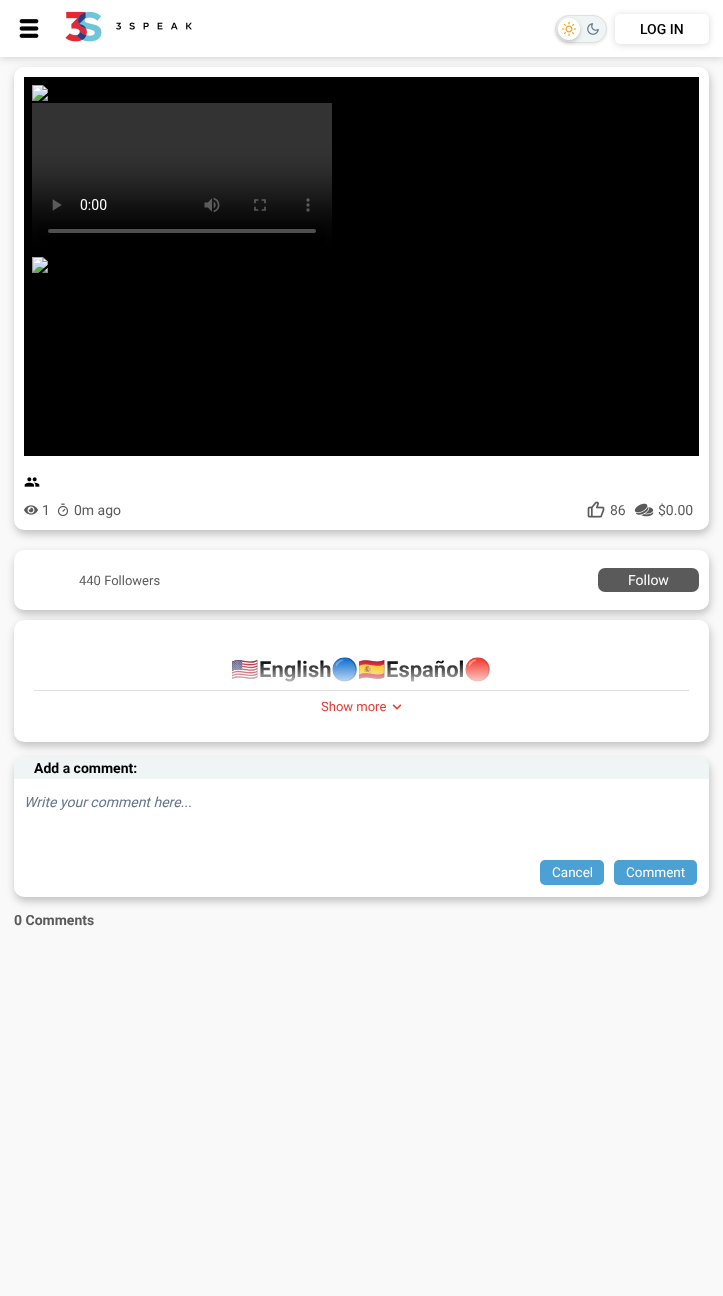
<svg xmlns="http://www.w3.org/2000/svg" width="723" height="1296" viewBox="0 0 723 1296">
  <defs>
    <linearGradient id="g1" gradientUnits="userSpaceOnUse" x1="362" y1="660" x2="362" y2="690"><stop offset="0" stop-color="rgb(255,255,255)" stop-opacity="0"/><stop offset="1" stop-color="rgb(255,255,255)"/></linearGradient>
  </defs>
  <rect width="100%" height="100%" fill="rgb(249,249,249)"/>
  <rect x="15" y="71" width="695" height="463" rx="10" fill="rgba(0,0,0,0.23)" filter="blur(4.5px)"/>
  <rect x="14" y="67" width="695" height="463" rx="10" fill="rgb(255,255,255)"/>
  <rect x="0" y="0" width="723" height="57" fill="rgba(0,0,0,0.2)" filter="blur(5px)"/>
  <rect x="0" y="0" width="723" height="57" fill="rgb(255,255,255)"/>
  <image x="19" y="19" width="20" height="19" href="pic1.png"/>
  <image x="65" y="11" width="127" height="31" href="pic2.png"/>
  <rect x="555" y="16" width="52" height="28" rx="14" fill="rgba(0,0,0,0.1)" filter="blur(1.5px)"/>
  <rect x="615" y="15" width="94" height="30" rx="5" fill="rgba(0,0,0,0.15)" filter="blur(3.5px)"/>
  <rect x="555.5" y="15.5" width="51" height="27" rx="13.5" fill="rgb(239,244,245)" stroke="rgb(224,224,224)"/>
  <rect x="558" y="20" width="22" height="22" rx="11" fill="rgba(0,0,0,0.2)" filter="blur(2px)"/>
  <circle cx="569" cy="29" r="11" fill="rgb(255,255,255)"/>
  <image x="562" y="22" width="14" height="14" href="pic3.png"/>
  <image x="587" y="23" width="12" height="12" href="pic4.png"/>
  <rect x="615" y="14" width="94" height="30" rx="5" fill="rgb(255,255,255)"/>
  <text x="640" y="34" font-family="Roboto" font-size="14" font-weight="500" fill="rgb(0,0,0)">LOG IN</text>
  <rect x="24" y="77" width="675" height="379" fill="rgb(0,0,0)"/>
  <image x="32" y="85" width="300" height="188" href="pic5.png"/>
  <image x="24" y="477" width="16" height="10" href="pic6.png"/>
  <image x="24" y="505" width="14" height="10" href="pic7.png"/>
  <text x="42" y="515" font-family="Roboto" font-size="14" fill="rgb(90,90,90)">1</text>
  <image x="57" y="503" width="12" height="14" href="pic8.png"/>
  <text x="74" y="515" font-family="Roboto" font-size="14" fill="rgb(90,90,90)">0m ago</text>
  <image x="587" y="501" width="18" height="17" href="pic9.png"/>
  <text x="610" y="515" font-family="Roboto" font-size="14" fill="rgb(90,90,90)">86</text>
  <image x="634" y="503" width="20" height="14" href="pic10.png"/>
  <text x="658" y="515" font-family="Roboto" font-size="14" fill="rgb(90,90,90)">$0.00</text>
  <rect x="15" y="554" width="695" height="60" rx="10" fill="rgba(0,0,0,0.23)" filter="blur(4.5px)"/>
  <rect x="14" y="550" width="695" height="60" rx="10" fill="rgb(255,255,255)"/>
  <text x="79" y="585" font-family="Roboto" font-size="13" fill="rgb(90,90,90)">440 Followers</text>
  <rect x="598" y="568" width="101" height="24" rx="7" fill="rgb(90,90,90)"/>
  <text x="628" y="585" font-family="Roboto" font-size="14" fill="rgb(255,255,255)">Follow</text>
  <rect x="15" y="624" width="695" height="122" rx="10" fill="rgba(0,0,0,0.23)" filter="blur(4.5px)"/>
  <rect x="14" y="620" width="695" height="122" rx="10" fill="rgb(255,255,255)"/>
  <text x="231" y="677" font-family="Noto Color Emoji" font-size="22" font-weight="bold" fill="rgb(0,0,0)">🇺🇸</text>
  <text x="259" y="677" font-family="Roboto" font-size="22" font-weight="bold" fill="rgb(0,0,0)">English</text>
  <text x="331" y="677" font-family="Noto Color Emoji" font-size="22" font-weight="bold" fill="rgb(0,0,0)">🔵🇪🇸</text>
  <text x="386" y="677" font-family="Roboto" font-size="22" font-weight="bold" fill="rgb(0,0,0)">Español</text>
  <text x="464" y="677" font-family="Noto Color Emoji" font-size="22" font-weight="bold" fill="rgb(0,0,0)">🔴</text>
  <rect x="231" y="661" width="260" height="21" fill="url(#g1)"/>
  <rect x="34" y="690" width="655" height="1" fill="rgb(224,224,224)"/>
  <text x="321" y="711" font-family="Roboto" font-size="13" fill="rgb(229,57,53)">Show more</text>
  <image x="392" y="704" width="10" height="6" href="pic11.png"/>
  <rect x="15" y="761" width="695" height="140" rx="10" fill="rgba(0,0,0,0.23)" filter="blur(4.5px)"/>
  <rect x="14" y="757" width="695" height="140" rx="10" fill="rgb(255,255,255)"/>
  <path d="M24 757H699C704.5 757 709 761.5 709 767V779H14V767C14 761.5 18.5 757 24 757Z" fill="rgb(239,244,245)"/>
  <text x="34" y="773" font-family="Roboto" font-size="14" font-weight="bold" fill="rgb(0,0,0)">Add a comment:</text>
  <text x="24" y="807" font-family="Roboto" font-size="14" font-style="italic" fill="rgb(100,116,139)">Write your comment here...</text>
  <rect x="540" y="860" width="64" height="25" rx="5" fill="rgb(75,161,211)"/>
  <text x="552" y="877" font-family="Roboto" font-size="13.5" fill="rgb(255,255,255)">Cancel</text>
  <rect x="614" y="860" width="83" height="25" rx="5" fill="rgb(75,161,211)"/>
  <text x="626" y="877" font-family="Roboto" font-size="13.5" fill="rgb(255,255,255)">Comment</text>
  <text x="14" y="925" font-family="Roboto" font-size="14" font-weight="bold" fill="rgb(90,90,90)">0 Comments</text>
</svg>
